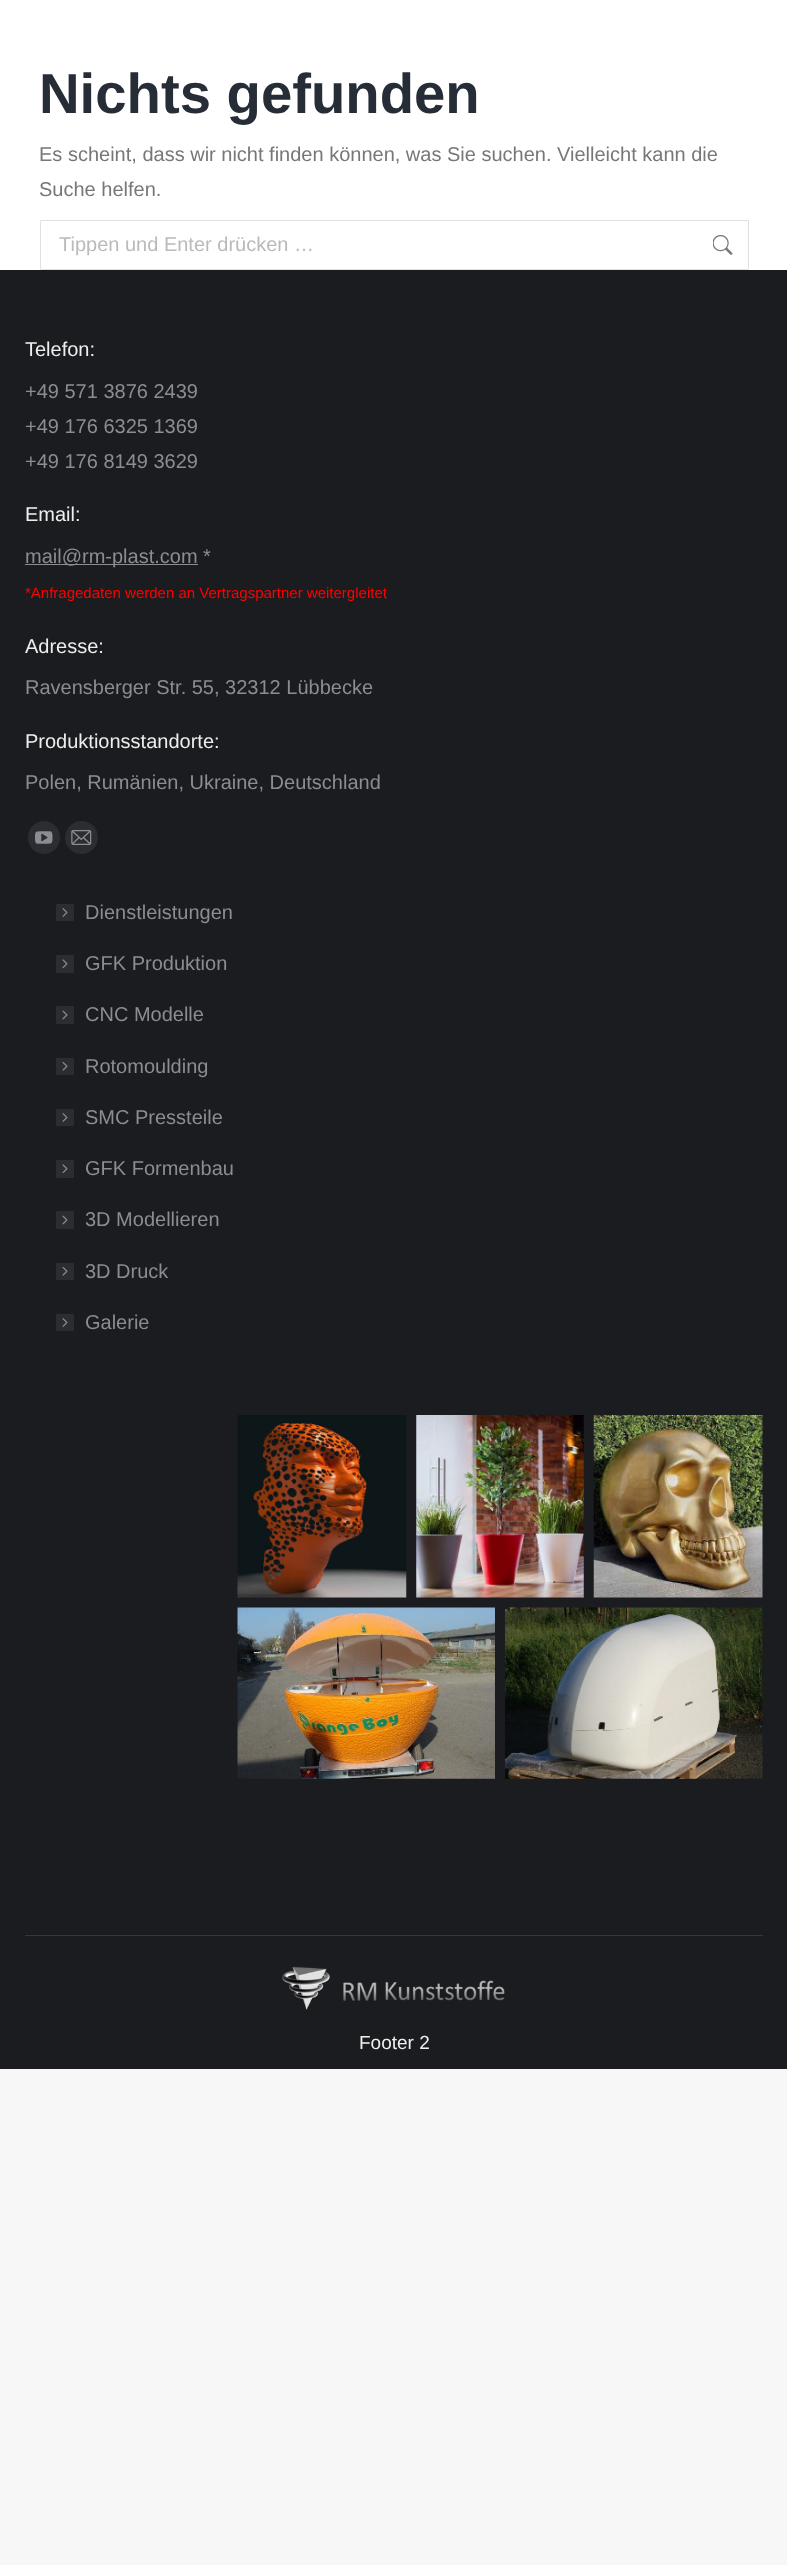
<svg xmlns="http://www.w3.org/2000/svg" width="787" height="2565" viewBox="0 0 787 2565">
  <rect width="100%" height="100%" fill="rgb(247,247,247)"/>
  <rect x="0" y="0" width="787" height="270" fill="rgb(255,255,255)"/>
  <text x="39" y="113" font-family="Liberation Sans" font-size="56.25" font-weight="bold" fill="rgb(38,45,55)">Nichts gefunden</text>
  <g font-family="Liberation Sans" font-size="20" fill="rgb(119,119,119)">
    <text>
      <tspan x="39" y="161">Es scheint, dass wir nicht finden können, was Sie suchen. Vielleicht kann die</tspan>
      <tspan x="39" y="196">Suche helfen.</tspan>
    </text>
  </g>
  <rect x="40.5" y="220.5" width="708" height="49" rx="0.5" fill="none" stroke="rgb(225,225,225)"/>
  <text x="59" y="251" font-family="Liberation Sans" font-size="20" fill="rgb(186,186,186)">Tippen und Enter drücken …</text>
  <image x="713" y="235" width="20" height="20" href="pic1.png"/>
  <rect x="0" y="270" width="787" height="1799" fill="rgb(26,28,32)"/>
  <text x="25" y="356" font-family="Liberation Sans" font-size="20" fill="rgb(238,238,238)">Telefon:</text>
  <g font-family="Liberation Sans" font-size="20" fill="rgb(139,141,148)">
    <text>
      <tspan x="25" y="398">+49 571 3876 2439</tspan>
      <tspan x="25" y="433">+49 176 6325 1369</tspan>
      <tspan x="25" y="468">+49 176 8149 3629</tspan>
    </text>
  </g>
  <text x="25" y="521" font-family="Liberation Sans" font-size="20" fill="rgb(238,238,238)">Email:</text>
  <rect x="25" y="564" width="173" height="1" fill="rgb(139,141,148)"/>
  <text x="25" y="563" font-family="Liberation Sans" font-size="20" fill="rgb(139,141,148)">mail@rm-plast.com *</text>
  <text x="25" y="598" font-family="Liberation Sans" font-size="15" fill="rgb(255,0,0)">*Anfragedaten werden an Vertragspartner weitergleitet</text>
  <text x="25" y="653" font-family="Liberation Sans" font-size="20" fill="rgb(238,238,238)">Adresse:</text>
  <text x="25" y="694" font-family="Liberation Sans" font-size="20" fill="rgb(139,141,148)">Ravensberger Str. 55, 32312 Lübbecke</text>
  <text x="25" y="748" font-family="Liberation Sans" font-size="20" fill="rgb(238,238,238)">Produktionsstandorte:</text>
  <text x="25" y="789" font-family="Liberation Sans" font-size="20" fill="rgb(139,141,148)">Polen, Rumänien, Ukraine, Deutschland</text>
  <rect x="28" y="821" width="32" height="33" rx="16" fill="rgb(43,45,49)"/>
  <image x="35" y="831" width="18" height="13" href="pic2.png"/>
  <circle cx="81.5" cy="837.5" r="16.5" fill="rgb(43,45,49)"/>
  <image x="71" y="830" width="21" height="15" href="pic3.png"/>
  <rect x="56" y="904" width="18" height="17" rx="1" fill="rgb(43,45,49)"/>
  <text x="85" y="919" font-family="Liberation Sans" font-size="20" fill="rgb(139,141,148)">Dienstleistungen</text>
  <image x="62" y="908" width="6" height="9" href="pic4.png"/>
  <rect x="56" y="955" width="18" height="18" rx="1" fill="rgb(43,45,49)"/>
  <text x="85" y="970" font-family="Liberation Sans" font-size="20" fill="rgb(139,141,148)">GFK Produktion</text>
  <image x="62" y="959" width="6" height="9" href="pic5.png"/>
  <rect x="56" y="1006" width="18" height="18" rx="1" fill="rgb(43,45,49)"/>
  <text x="85" y="1021" font-family="Liberation Sans" font-size="20" fill="rgb(139,141,148)">CNC Modelle</text>
  <image x="62" y="1010" width="6" height="10" href="pic6.png"/>
  <rect x="56" y="1058" width="18" height="17" rx="1" fill="rgb(43,45,49)"/>
  <text x="85" y="1073" font-family="Liberation Sans" font-size="20" fill="rgb(139,141,148)">Rotomoulding</text>
  <image x="62" y="1062" width="6" height="9" href="pic7.png"/>
  <rect x="56" y="1109" width="18" height="17" rx="1" fill="rgb(43,45,49)"/>
  <text x="85" y="1124" font-family="Liberation Sans" font-size="20" fill="rgb(139,141,148)">SMC Pressteile</text>
  <image x="62" y="1113" width="6" height="9" href="pic4.png"/>
  <rect x="56" y="1160" width="18" height="18" rx="1" fill="rgb(43,45,49)"/>
  <text x="85" y="1175" font-family="Liberation Sans" font-size="20" fill="rgb(139,141,148)">GFK Formenbau</text>
  <image x="62" y="1164" width="6" height="9" href="pic5.png"/>
  <rect x="56" y="1211" width="18" height="18" rx="1" fill="rgb(43,45,49)"/>
  <text x="85" y="1226" font-family="Liberation Sans" font-size="20" fill="rgb(139,141,148)">3D Modellieren</text>
  <image x="62" y="1215" width="6" height="10" href="pic6.png"/>
  <rect x="56" y="1263" width="18" height="17" rx="1" fill="rgb(43,45,49)"/>
  <text x="85" y="1278" font-family="Liberation Sans" font-size="20" fill="rgb(139,141,148)">3D Druck</text>
  <image x="62" y="1267" width="6" height="9" href="pic7.png"/>
  <rect x="56" y="1314" width="18" height="17" rx="1" fill="rgb(43,45,49)"/>
  <text x="85" y="1329" font-family="Liberation Sans" font-size="20" fill="rgb(139,141,148)">Galerie</text>
  <image x="62" y="1318" width="6" height="9" href="pic4.png"/>
  <image x="237" y="1415" width="170" height="183" href="pic8.png"/>
  <image x="416" y="1415" width="168" height="183" href="pic9.png"/>
  <image x="593" y="1415" width="170" height="183" href="pic10.png"/>
  <image x="237" y="1607" width="258" height="172" href="pic11.png"/>
  <image x="505" y="1607" width="258" height="172" href="pic12.png"/>
  <rect x="25" y="1935" width="738" height="1" fill="rgb(53,55,59)"/>
  <image x="282" y="1966" width="223" height="44" href="pic13.png"/>
  <text x="359" y="2049" font-family="Liberation Sans" font-size="19" fill="rgb(238,238,238)">Footer 2</text>
</svg>
